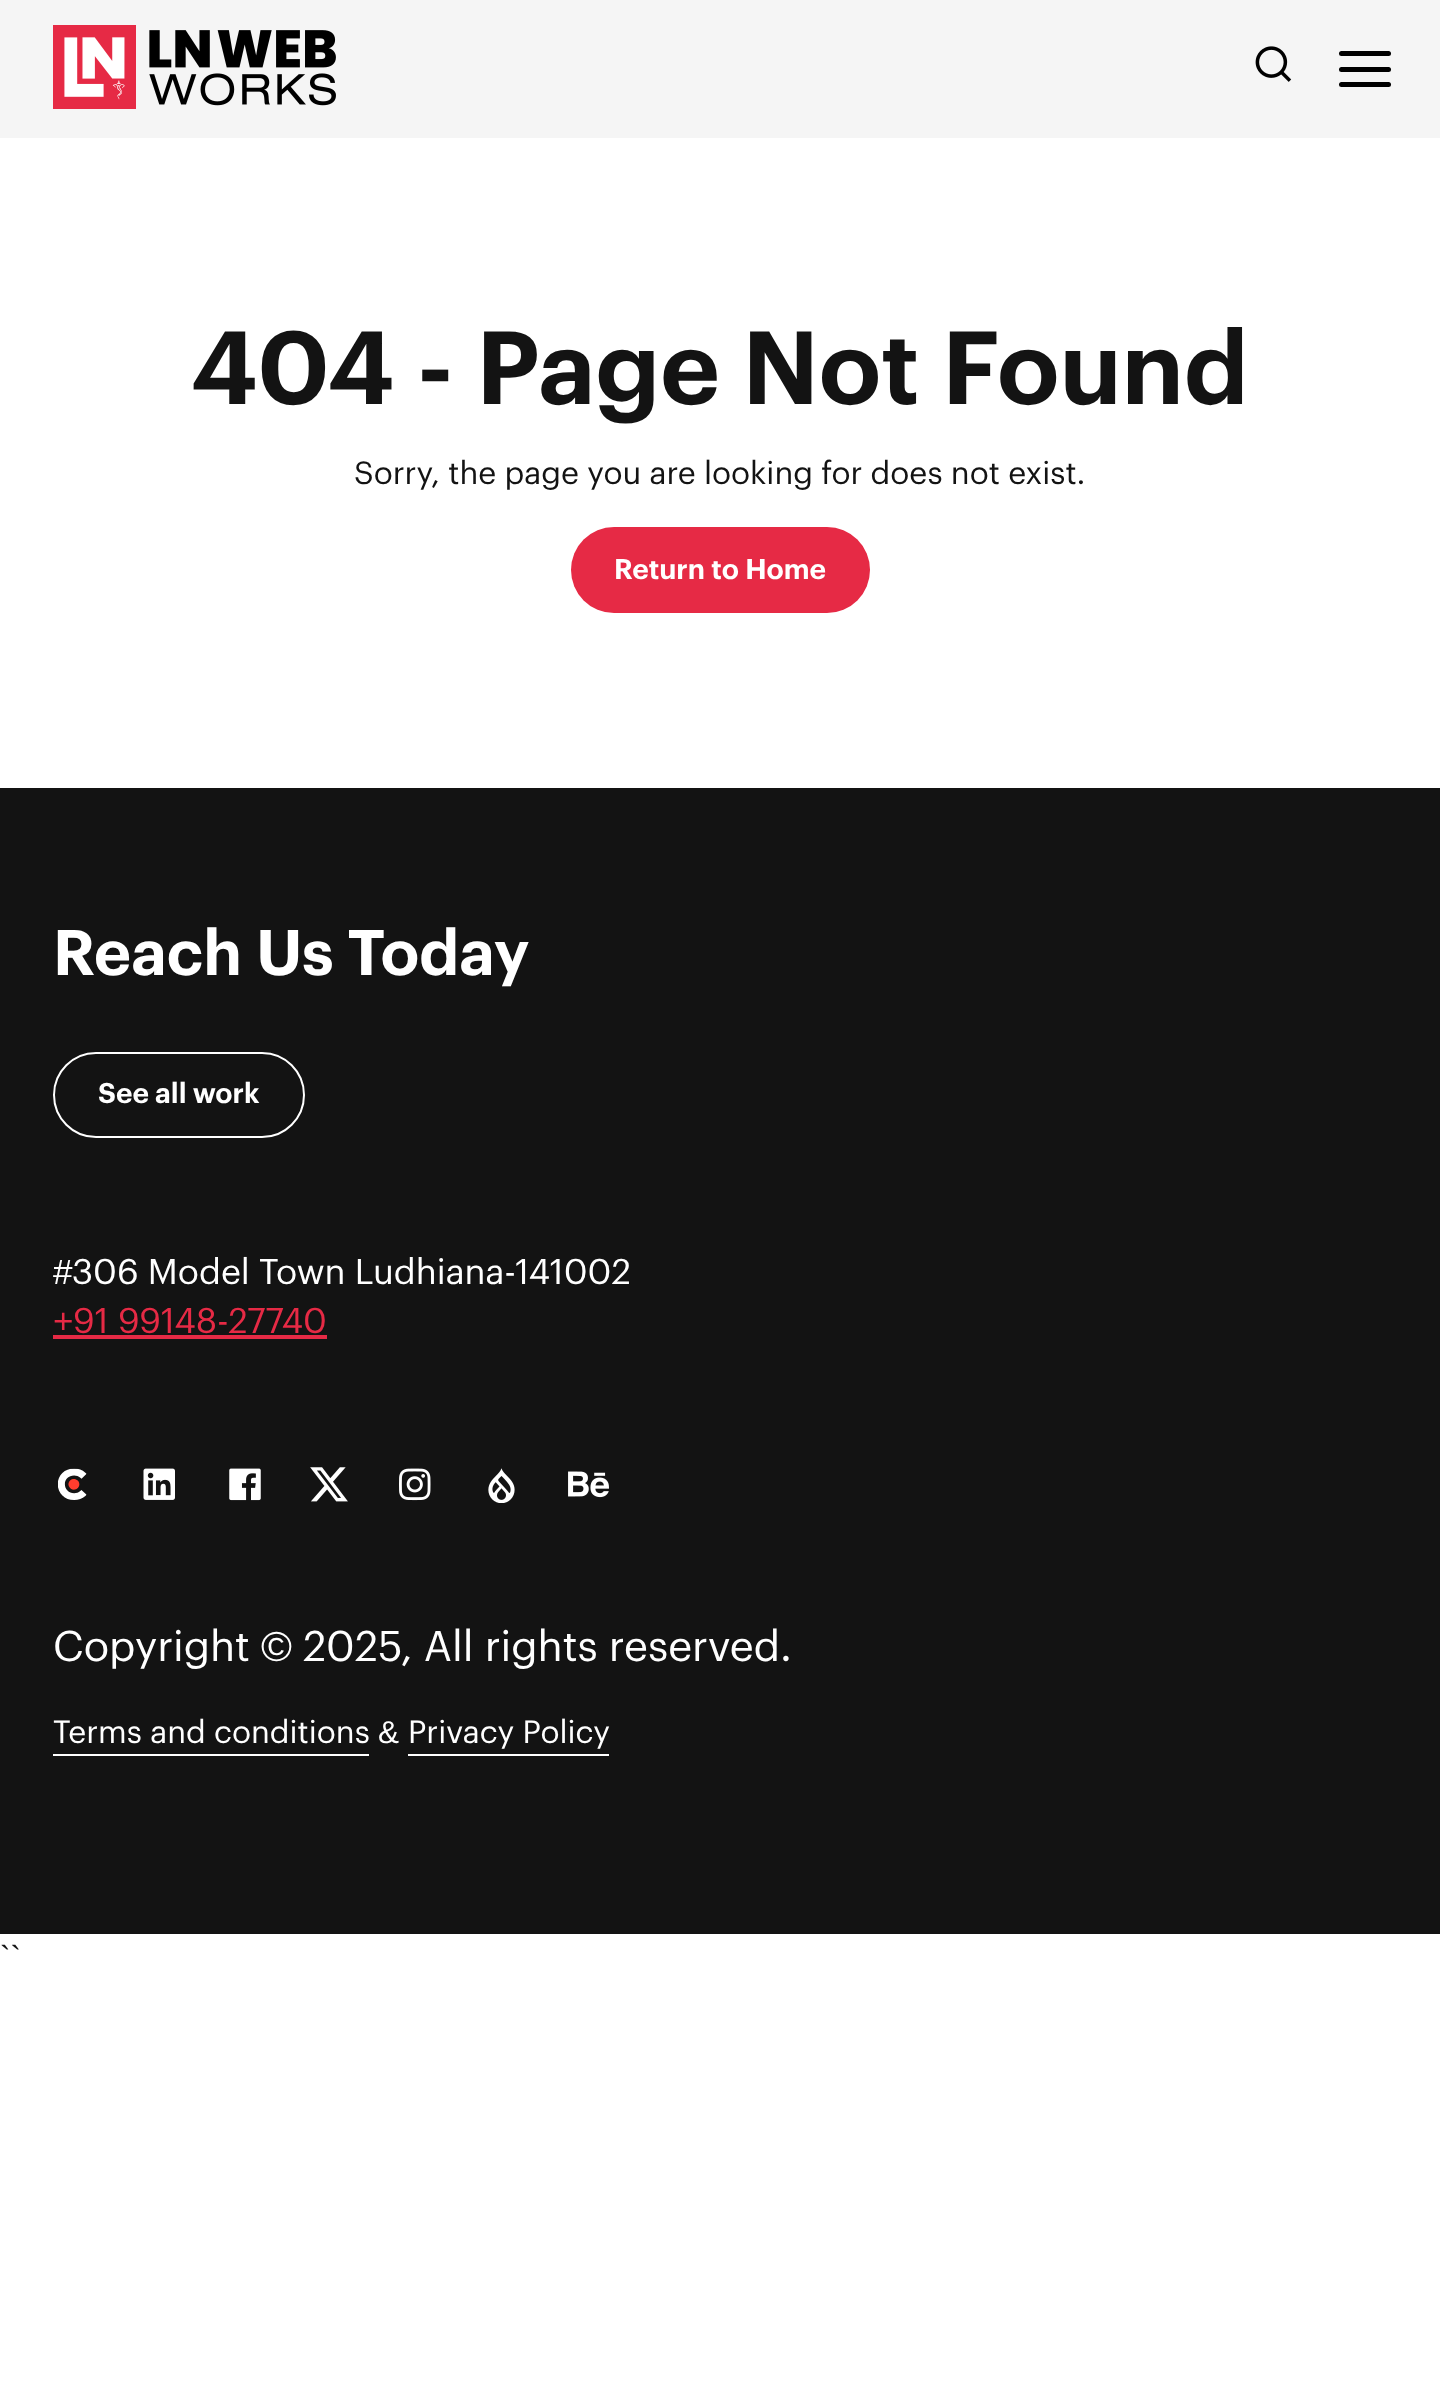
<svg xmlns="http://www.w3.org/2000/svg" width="1440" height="2389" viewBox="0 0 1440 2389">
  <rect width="100%" height="100%" fill="rgb(255,255,255)"/>
  <rect x="0" y="0" width="1440" height="138" fill="rgb(245,245,245)"/>
  <image x="53" y="25" width="283" height="84" href="pic1.png"/>
  <image x="1255" y="46" width="37" height="36" href="pic2.png"/>
  <rect x="1339" y="51" width="52" height="5" rx="2.5" fill="rgb(0,0,0)"/>
  <rect x="1339" y="67" width="52" height="5" rx="2.5" fill="rgb(0,0,0)"/>
  <rect x="1339" y="82" width="52" height="5" rx="2.5" fill="rgb(0,0,0)"/>
  <text x="191" y="404" font-family="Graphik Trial" font-size="101.5" font-weight="600" fill="rgb(19,19,19)">404 - Page Not Found</text>
  <text x="354" y="484" font-family="Graphik Trial" font-size="31.5" fill="rgb(19,19,19)">Sorry, the page you are looking for does not exist.</text>
  <rect x="571" y="527" width="299" height="86" rx="43" fill="rgb(230,42,69)"/>
  <text x="614" y="579" font-family="Graphik Trial" font-size="28" font-weight="600" fill="rgb(255,255,255)">Return to Home</text>
  <rect x="0" y="788" width="1440" height="1146" fill="rgb(19,19,19)"/>
  <text x="53" y="975" font-family="Graphik Trial" font-size="63" font-weight="600" fill="rgb(255,255,255)">Reach Us Today</text>
  <rect x="54" y="1053" width="250" height="84" rx="42" fill="none" stroke="rgb(255,255,255)" stroke-width="2"/>
  <text x="98" y="1103" font-family="Graphik Trial" font-size="28" font-weight="600" fill="rgb(255,255,255)">See all work</text>
  <text x="53" y="1284" font-family="Liberation Sans" font-size="35" fill="rgb(255,255,255)">#</text>
  <text x="72" y="1284" font-family="Graphik Trial" font-size="35" fill="rgb(255,255,255)">306 Model Town Ludhiana-141002</text>
  <text x="53" y="1333" font-family="Liberation Sans" font-size="35" fill="rgb(230,42,69)">+</text>
  <rect x="53" y="1335" width="274" height="4" fill="rgb(230,42,69)"/>
  <text x="73" y="1333" font-family="Graphik Trial" font-size="35" fill="rgb(230,42,69)">91 99148-27740</text>
  <image x="58" y="1468" width="29" height="32" href="pic3.png"/>
  <image x="143" y="1468" width="32" height="32" href="pic4.png"/>
  <image x="229" y="1468" width="32" height="33" href="pic5.png"/>
  <image x="310" y="1467" width="38" height="35" href="pic6.png"/>
  <image x="399" y="1468" width="32" height="33" href="pic7.png"/>
  <image x="488" y="1468" width="27" height="35" href="pic8.png"/>
  <image x="568" y="1471" width="41" height="27" href="pic9.png"/>
  <text x="53" y="1661" font-family="Graphik Trial" font-size="42" fill="rgb(255,255,255)">Copyright</text>
  <text x="261" y="1661" font-family="Liberation Sans" font-size="42" fill="rgb(255,255,255)">©</text>
  <text x="303" y="1661" font-family="Graphik Trial" font-size="42" fill="rgb(255,255,255)">2025, All rights reserved.</text>
  <text x="53" y="1743" font-family="Graphik Trial" font-size="31.5" fill="rgb(255,255,255)">Terms and conditions</text>
  <rect x="53" y="1754" width="316" height="2" fill="rgb(255,255,255)"/>
  <text x="378" y="1743" font-family="Liberation Sans" font-size="31.5" fill="rgb(255,255,255)">&amp;</text>
  <text x="408" y="1743" font-family="Graphik Trial" font-size="31.5" fill="rgb(255,255,255)">Privacy Policy</text>
  <rect x="408" y="1754" width="201" height="2" fill="rgb(255,255,255)"/>
  <text x="0" y="1968" font-family="Liberation Sans" font-size="31.5" fill="rgb(19,19,19)">``</text>
</svg>
